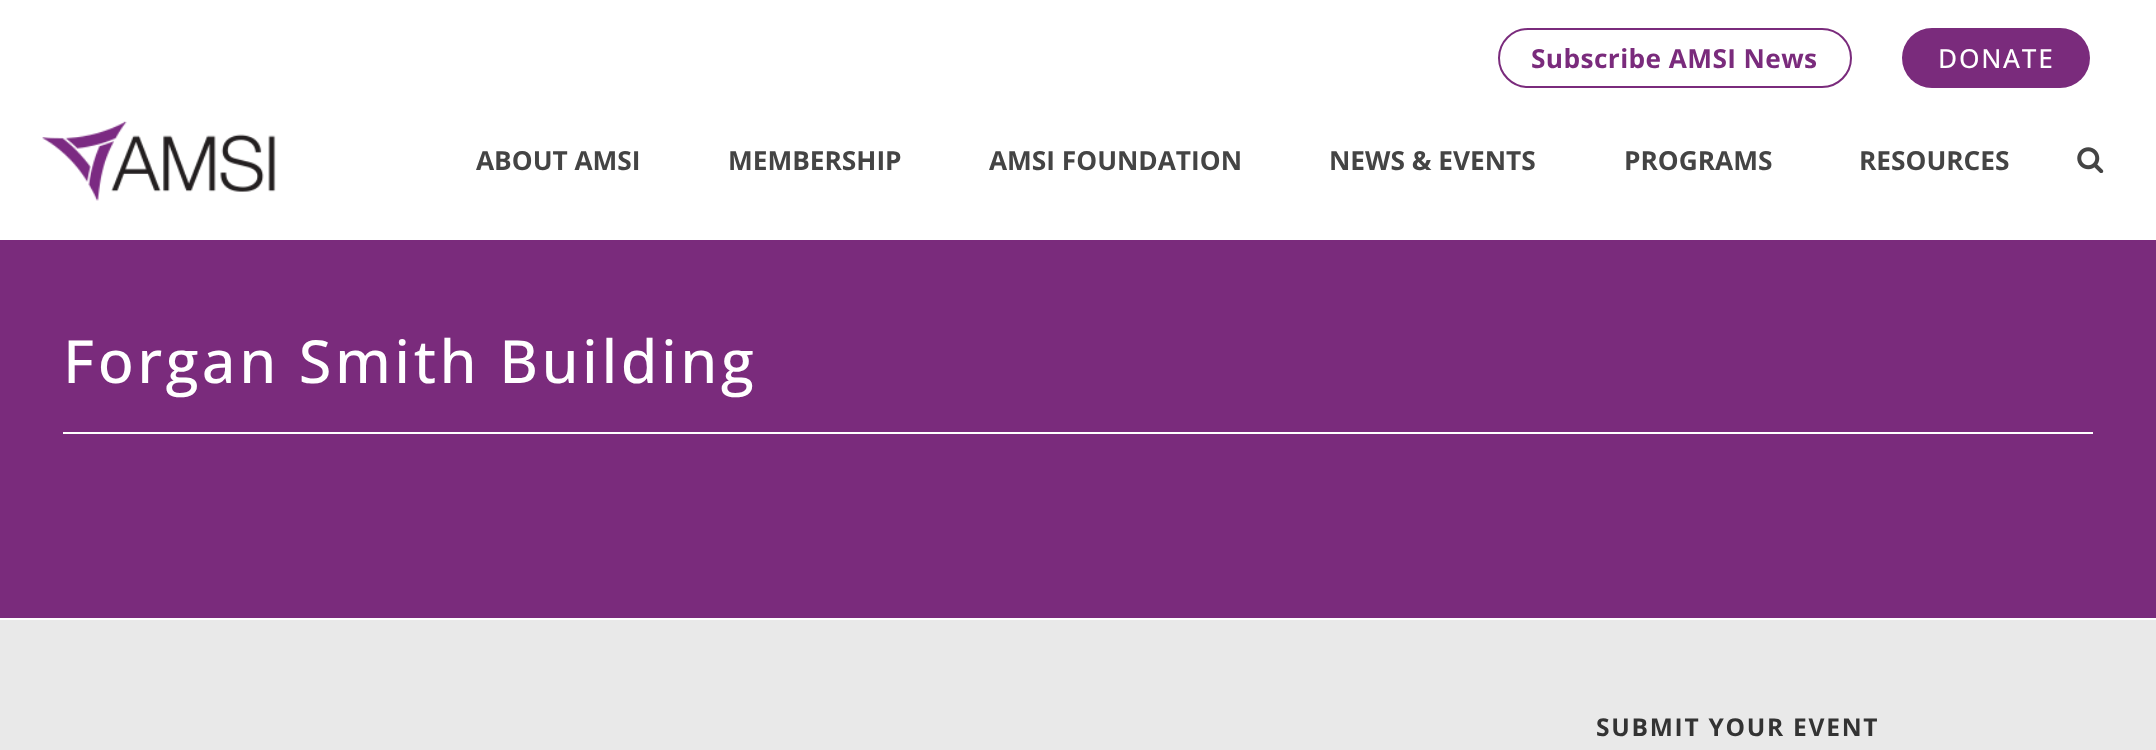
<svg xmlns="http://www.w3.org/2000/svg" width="2156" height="750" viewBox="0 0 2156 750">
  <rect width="100%" height="100%" fill="rgb(233,233,233)"/>
  <rect x="0" y="240" width="2156" height="378" fill="rgb(122,43,124)"/>
  <rect x="0" y="618" width="2156" height="2" fill="rgb(255,255,255)"/>
  <rect x="0" y="0" width="2156" height="240" fill="rgb(255,255,255)"/>
  <rect x="1499" y="29" width="352" height="58" rx="29" fill="none" stroke="rgb(122,43,124)" stroke-width="2"/>
  <text x="1531" y="68" font-family="Open Sans" font-size="26.25" font-weight="bold" letter-spacing="0.4" fill="rgb(122,43,124)">Subscribe AMSI News</text>
  <rect x="1902" y="28" width="188" height="60" rx="30" fill="rgb(122,43,124)"/>
  <text x="1938" y="68" font-family="Open Sans" font-size="26.25" font-weight="500" letter-spacing="1.75" fill="rgb(255,255,255)">DONATE</text>
  <image x="42" y="121" width="234" height="80" href="pic1.png"/>
  <g font-family="Open Sans" font-size="26.25" font-weight="bold" fill="rgb(68,68,68)">
    <text x="476" y="170">ABOUT AMSI</text>
    <text x="728" y="170">MEMBERSHIP</text>
    <text x="989" y="170">AMSI FOUNDATION</text>
    <text x="1329" y="170">NEWS &amp; EVENTS</text>
    <text x="1624" y="170">PROGRAMS</text>
    <text x="1859" y="170">RESOURCES</text>
  </g>
  <image x="2077" y="147" width="27" height="26" href="pic2.png"/>
  <rect x="63" y="432" width="2030" height="2" fill="rgb(255,255,255)"/>
  <text x="63" y="383" font-family="Open Sans" font-size="59.5" font-weight="500" letter-spacing="3.5" fill="rgb(255,255,255)">Forgan Smith Building</text>
  <text x="1596" y="736" font-family="Open Sans" font-size="24.5" font-weight="bold" letter-spacing="1.75" fill="rgb(51,51,51)">SUBMIT YOUR EVENT</text>
</svg>
